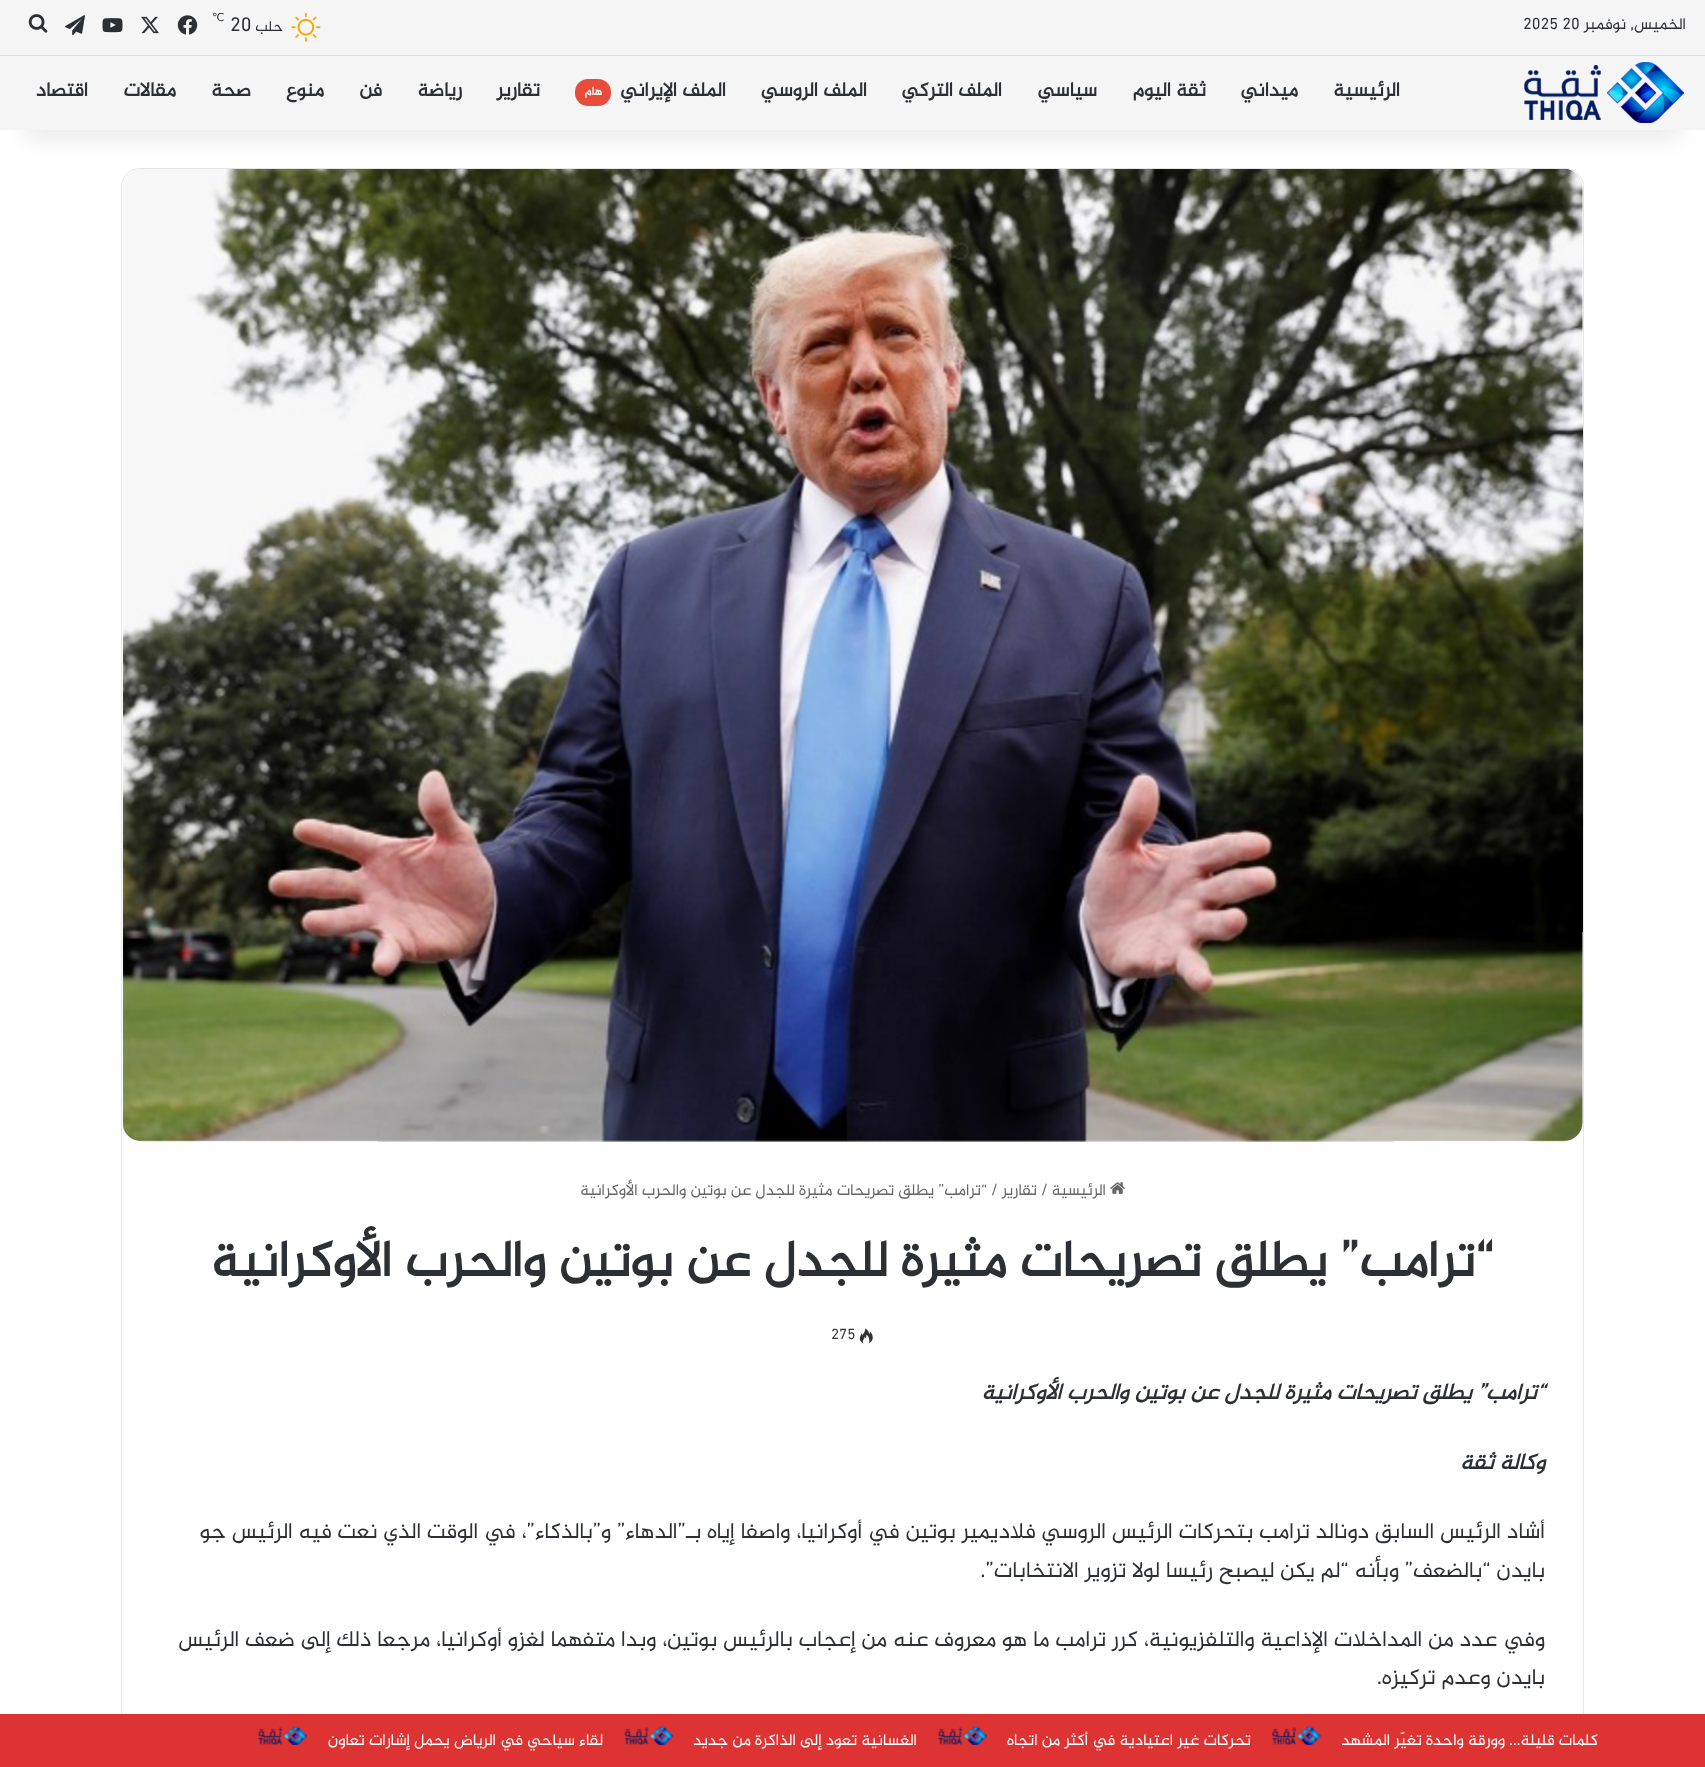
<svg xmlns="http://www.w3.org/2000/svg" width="1705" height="1767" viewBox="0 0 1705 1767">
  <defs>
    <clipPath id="clip1"><rect x="206" y="13" width="123" height="30"/></clipPath>
  </defs>
  <rect width="100%" height="100%" fill="rgb(255,255,255)"/>
  <rect x="121.5" y="168.5" width="1462" height="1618" rx="18.5" fill="none" stroke="rgb(230,230,230)"/>
  <image x="123" y="169" width="1460" height="973" href="pic8.png"/>
  <rect x="25" y="56" width="1655" height="80" fill="rgba(0,0,0,0.1)" filter="blur(12.5px)"/>
  <rect x="0" y="0" width="1705" height="55" fill="rgb(245,245,245)"/>
  <rect x="0" y="55" width="1705" height="1" fill="rgb(221,221,221)"/>
  <text x="1686" y="29" font-family="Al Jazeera" font-size="16.25" direction="rtl" fill="rgb(44,47,52)">الخميس, نوفمبر</text>
  <text x="1523" y="29" font-family="Al Jazeera" font-size="16.25" fill="rgb(44,47,52)">2025 20</text>
  <image x="291" y="13" width="30" height="29" href="pic1.png"/>
  <text x="283" y="31" font-family="Al Jazeera" font-size="15" direction="rtl" fill="rgb(44,47,52)">حلب</text>
  <text x="230" y="31" font-family="Al Jazeera" font-size="20" fill="rgb(44,47,52)">20</text>
  <g clip-path="url(#clip1)">
    <text x="212" y="21" font-family="DejaVu Sans" font-size="11" fill="rgb(44,47,52)">℃</text>
  </g>
  <image x="177" y="15" width="21" height="20" href="pic2.png"/>
  <image x="141" y="16" width="18" height="18" href="pic3.png"/>
  <image x="102" y="18" width="21" height="15" href="pic4.png"/>
  <image x="65" y="15" width="20" height="21" href="pic5.png"/>
  <image x="28" y="14" width="20" height="19" href="pic6.png"/>
  <rect x="0" y="56" width="1705" height="74" fill="rgb(245,245,245)"/>
  <image x="1524" y="62" width="160" height="61" href="pic7.png"/>
  <g font-family="Al Jazeera" font-size="20" font-weight="bold" direction="rtl" fill="rgb(44,47,52)">
    <text x="1400" y="96">الرئيسية</text>
    <text x="1298" y="96">ميداني</text>
    <text x="1206" y="96">ثقة اليوم</text>
    <text x="1097" y="96">سياسي</text>
    <text x="1002" y="96">الملف التركي</text>
    <text x="867" y="96">الملف الروسي</text>
    <text x="726" y="96">الملف الإيراني</text>
  </g>
  <rect x="575" y="79" width="36" height="27" rx="13" fill="rgb(231,76,60)"/>
  <text x="602" y="95" font-family="Al Jazeera" font-size="12" font-weight="bold" direction="rtl" fill="rgb(255,255,255)">هام</text>
  <g font-family="Al Jazeera" font-size="20" font-weight="bold" direction="rtl" fill="rgb(44,47,52)">
    <text x="540" y="96">تقارير</text>
    <text x="462" y="96">رياضة</text>
    <text x="382" y="96">فن</text>
    <text x="324" y="96">منوع</text>
    <text x="251" y="96">صحة</text>
    <text x="176" y="96">مقالات</text>
    <text x="88" y="96">اقتصاد</text>
  </g>
  <image x="1110" y="1182" width="15" height="12" href="pic9.png"/>
  <text x="1106" y="1195" font-family="Al Jazeera" font-size="16.25" direction="rtl" fill="rgb(102,102,102)">الرئيسية</text>
  <text x="1041" y="1195" font-family="Al Jazeera" font-size="16.25" fill="rgb(102,102,102)">/</text>
  <text x="1037" y="1195" font-family="Al Jazeera" font-size="16.25" direction="rtl" fill="rgb(102,102,102)">تقارير</text>
  <text x="991" y="1195" font-family="Al Jazeera" font-size="16.25" fill="rgb(102,102,102)">/</text>
  <text x="987" y="1195" font-family="Al Jazeera" font-size="16.25" direction="rtl" fill="rgb(102,102,102)">“ترامب” يطلق تصريحات مثيرة للجدل عن بوتين والحرب الأوكرانية</text>
  <text x="1494" y="1276" font-family="Al Jazeera" font-size="51.25" font-weight="bold" direction="rtl" fill="rgb(44,47,52)">“ترامب” يطلق تصريحات مثيرة للجدل عن بوتين والحرب الأوكرانية</text>
  <image x="859" y="1328" width="14" height="16" href="pic10.png"/>
  <text x="831" y="1339" font-family="Al Jazeera" font-size="15" fill="rgb(51,51,51)">275</text>
  <g font-family="Al Jazeera" font-size="22.5" font-weight="bold" font-style="italic" direction="rtl" fill="rgb(44,47,52)">
    <text x="1545" y="1399">“ترامب” يطلق تصريحات مثيرة للجدل عن بوتين والحرب الأوكرانية</text>
    <text x="1545" y="1469">وكالة ثقة</text>
  </g>
  <g font-family="Al Jazeera" font-size="22.5" direction="rtl" fill="rgb(44,47,52)">
    <text>
      <tspan x="1545" y="1538">أشاد الرئيس السابق دونالد ترامب بتحركات الرئيس الروسي فلاديمير بوتين في أوكرانيا، واصفا إياه بـ”الدهاء” و”بالذكاء”، في الوقت الذي نعت فيه الرئيس جو</tspan>
      <tspan x="1545" y="1577">بايدن “بالضعف” وبأنه “لم يكن ليصبح رئيسا لولا تزوير الانتخابات”.</tspan>
    </text>
    <text>
      <tspan x="1545" y="1646">وفي عدد من المداخلات الإذاعية والتلفزيونية، كرر ترامب ما هو معروف عنه من إعجاب بالرئيس بوتين، وبدا متفهما لغزو أوكرانيا، مرجعا ذلك إلى ضعف الرئيس</tspan>
      <tspan x="1545" y="1684">بايدن وعدم تركيزه.</tspan>
    </text>
  </g>
  <rect x="0" y="1714" width="1705" height="53" fill="rgb(221,51,51)"/>
  <text x="1598" y="1745" font-family="Al Jazeera" font-size="16.25" direction="rtl" fill="rgb(255,255,255)">كلمات قليلة… وورقة واحدة تغيّر المشهد</text>
  <image x="1271" y="1726" width="50" height="19" href="pic11.png"/>
  <text x="1251" y="1745" font-family="Al Jazeera" font-size="16.25" direction="rtl" fill="rgb(255,255,255)">تحركات غير اعتيادية في أكثر من اتجاه</text>
  <image x="938" y="1726" width="50" height="19" href="pic12.png"/>
  <text x="917" y="1745" font-family="Al Jazeera" font-size="16.25" direction="rtl" fill="rgb(255,255,255)">الغسانية تعود إلى الذاكرة من جديد</text>
  <image x="624" y="1726" width="50" height="19" href="pic13.png"/>
  <text x="603" y="1745" font-family="Al Jazeera" font-size="16.25" direction="rtl" fill="rgb(255,255,255)">لقاء سياحي في الرياض يحمل إشارات تعاون</text>
  <image x="258" y="1726" width="50" height="19" href="pic14.png"/>
</svg>
